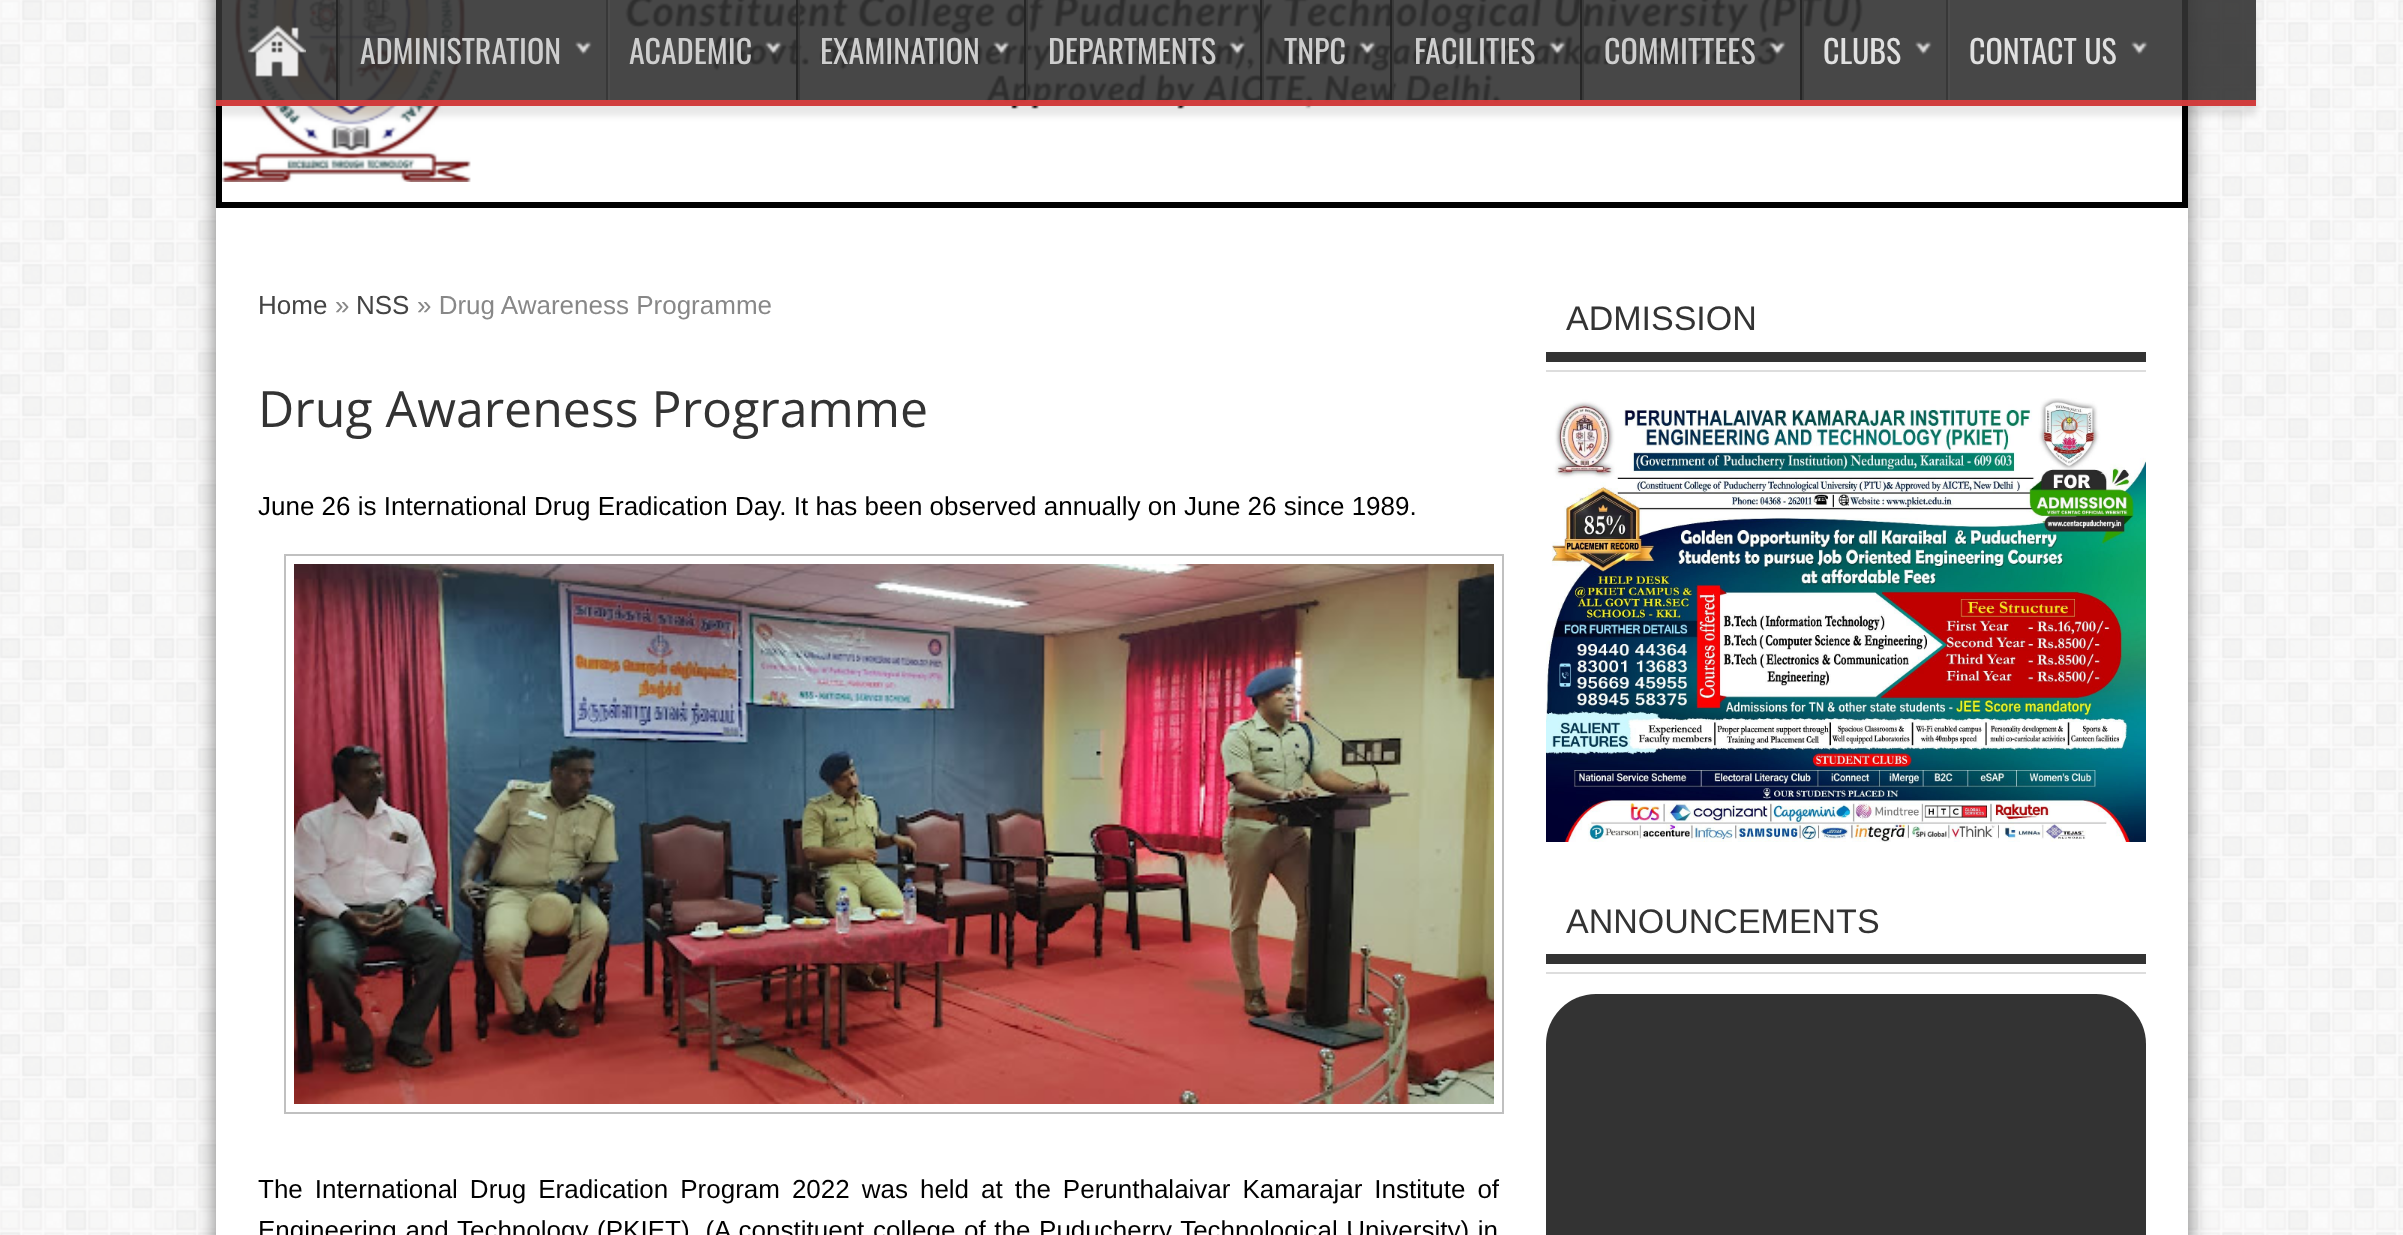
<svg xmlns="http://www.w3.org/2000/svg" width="2403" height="1235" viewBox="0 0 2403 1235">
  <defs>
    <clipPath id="clip1"><path d="M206 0H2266V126H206ZM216 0H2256V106H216Z" clip-rule="evenodd"/></clipPath>
  </defs>
  <rect width="100%" height="100%" fill="rgb(255,255,255)"/>
  <image x="0" y="0" width="2403" height="1235" href="pic1.png"/>
  <rect x="216" y="-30" width="1972" height="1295" fill="rgba(0,0,0,0.5)" filter="blur(10px)"/>
  <rect x="216" y="0" width="1972" height="1235" fill="rgb(255,255,255)"/>
  <image x="222" y="0" width="1641" height="182" href="pic2.png"/>
  <rect x="219" y="-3" width="1966" height="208" fill="none" stroke="rgb(0,0,0)" stroke-width="6"/>
  <g clip-path="url(#clip1)">
    <rect x="216" y="10" width="2040" height="106" fill="rgba(0,0,0,0.09)" filter="blur(3px)"/>
  </g>
  <rect x="216" y="0" width="2040" height="106" fill="rgba(51,51,51,0.9)"/>
  <rect x="216" y="100" width="2040" height="6" fill="rgba(224,61,61,0.9)"/>
  <image x="248" y="25" width="58" height="52" href="pic3.png"/>
  <rect x="336" y="0" width="2" height="100" fill="rgba(34,34,34,0.9)"/>
  <image x="575" y="41" width="17" height="14" href="pic4.png"/>
  <rect x="338" y="0" width="2" height="100" fill="rgba(56,56,56,0.9)"/>
  <text x="360" y="64" font-family="Oswald" font-size="32" fill="rgb(206,206,206)">ADMINISTRATION</text>
  <rect x="606" y="0" width="2" height="100" fill="rgb(56,56,56)"/>
  <image x="765" y="41" width="17" height="14" href="pic5.png"/>
  <rect x="608" y="0" width="2" height="100" fill="rgb(76,76,76)"/>
  <text x="629" y="64" font-family="Oswald" font-size="32" fill="rgb(206,206,206)">ACADEMIC</text>
  <rect x="796" y="0" width="2" height="100" fill="rgba(34,34,34,0.9)"/>
  <image x="993" y="41" width="17" height="14" href="pic6.png"/>
  <rect x="798" y="0" width="2" height="100" fill="rgba(56,56,56,0.9)"/>
  <text x="820" y="64" font-family="Oswald" font-size="32" fill="rgb(206,206,206)">EXAMINATION</text>
  <rect x="1024" y="0" width="2" height="100" fill="rgba(34,34,34,0.9)"/>
  <image x="1229" y="41" width="17" height="14" href="pic7.png"/>
  <rect x="1026" y="0" width="2" height="100" fill="rgba(56,56,56,0.9)"/>
  <text x="1048" y="64" font-family="Oswald" font-size="32" fill="rgb(206,206,206)">DEPARTMENTS</text>
  <rect x="1260" y="0" width="2" height="100" fill="rgba(34,34,34,0.9)"/>
  <image x="1359" y="41" width="17" height="14" href="pic8.png"/>
  <rect x="1262" y="0" width="2" height="100" fill="rgba(56,56,56,0.9)"/>
  <text x="1284" y="64" font-family="Oswald" font-size="32" fill="rgb(206,206,206)">TNPC</text>
  <rect x="1390" y="0" width="2" height="100" fill="rgba(34,34,34,0.9)"/>
  <image x="1549" y="41" width="17" height="14" href="pic9.png"/>
  <rect x="1392" y="0" width="2" height="100" fill="rgba(56,56,56,0.9)"/>
  <text x="1414" y="64" font-family="Oswald" font-size="32" fill="rgb(206,206,206)">FACILITIES</text>
  <rect x="1580" y="0" width="2" height="100" fill="rgba(34,34,34,0.9)"/>
  <image x="1769" y="41" width="17" height="14" href="pic10.png"/>
  <rect x="1582" y="0" width="2" height="100" fill="rgba(56,56,56,0.9)"/>
  <text x="1604" y="64" font-family="Oswald" font-size="32" fill="rgb(206,206,206)">COMMITTEES</text>
  <rect x="1800" y="0" width="2" height="100" fill="rgba(34,34,34,0.9)"/>
  <image x="1915" y="41" width="17" height="14" href="pic4.png"/>
  <rect x="1802" y="0" width="2" height="100" fill="rgba(56,56,56,0.9)"/>
  <text x="1823" y="64" font-family="Oswald" font-size="32" fill="rgb(224,224,224)">CLUBS</text>
  <rect x="1946" y="0" width="2" height="100" fill="rgb(56,56,56)"/>
  <image x="2131" y="41" width="17" height="14" href="pic11.png"/>
  <rect x="1948" y="0" width="2" height="100" fill="rgb(76,76,76)"/>
  <text x="1969" y="64" font-family="Oswald" font-size="32" fill="rgb(224,224,224)">CONTACT US</text>
  <text x="258" y="314" font-family="Arimo" font-size="26" fill="rgb(68,68,68)">Home</text>
  <text x="335" y="314" font-family="Arimo" font-size="26" fill="rgb(136,136,136)">»</text>
  <text x="356" y="314" font-family="Arimo" font-size="26" fill="rgb(68,68,68)">NSS</text>
  <text x="417" y="314" font-family="Arimo" font-size="26" fill="rgb(136,136,136)">» Drug Awareness Programme</text>
  <text x="258" y="427" font-family="Open Sans" font-size="50" fill="rgb(51,51,51)">Drug Awareness Programme</text>
  <text x="258" y="515" font-family="Arimo" font-size="26" fill="rgb(0,0,0)">June 26 is International Drug Eradication Day. It has been observed annually on June 26 since 1989.</text>
  <rect x="285" y="555" width="1218" height="558" fill="none" stroke="rgb(192,192,192)" stroke-width="2"/>
  <image x="294" y="564" width="1200" height="540" href="pic12.png"/>
  <g font-family="Arimo" font-size="26" fill="rgb(0,0,0)">
    <text>
      <tspan x="258" y="1198" word-spacing="4.75">The International Drug Eradication Program 2022 was held at the Perunthalaivar Kamarajar Institute of</tspan>
      <tspan x="258" y="1239" word-spacing="1.4">Engineering and Technology (PKIET), (A constituent college of the Puducherry Technological University) in</tspan>
    </text>
  </g>
  <rect x="1546" y="352" width="600" height="10" fill="rgb(51,51,51)"/>
  <text x="1566" y="330" font-family="Arimo" font-size="34" fill="rgb(51,51,51)">ADMISSION</text>
  <rect x="1546" y="370" width="600" height="2" fill="rgb(221,221,221)"/>
  <image x="1546" y="398" width="600" height="444" href="pic13.png"/>
  <rect x="1546" y="954" width="600" height="10" fill="rgb(51,51,51)"/>
  <text x="1566" y="933" font-family="Arimo" font-size="34" fill="rgb(51,51,51)">ANNOUNCEMENTS</text>
  <rect x="1546" y="972" width="600" height="2" fill="rgb(221,221,221)"/>
  <rect x="1546" y="994" width="600" height="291" rx="50" fill="rgb(51,51,51)"/>
</svg>
